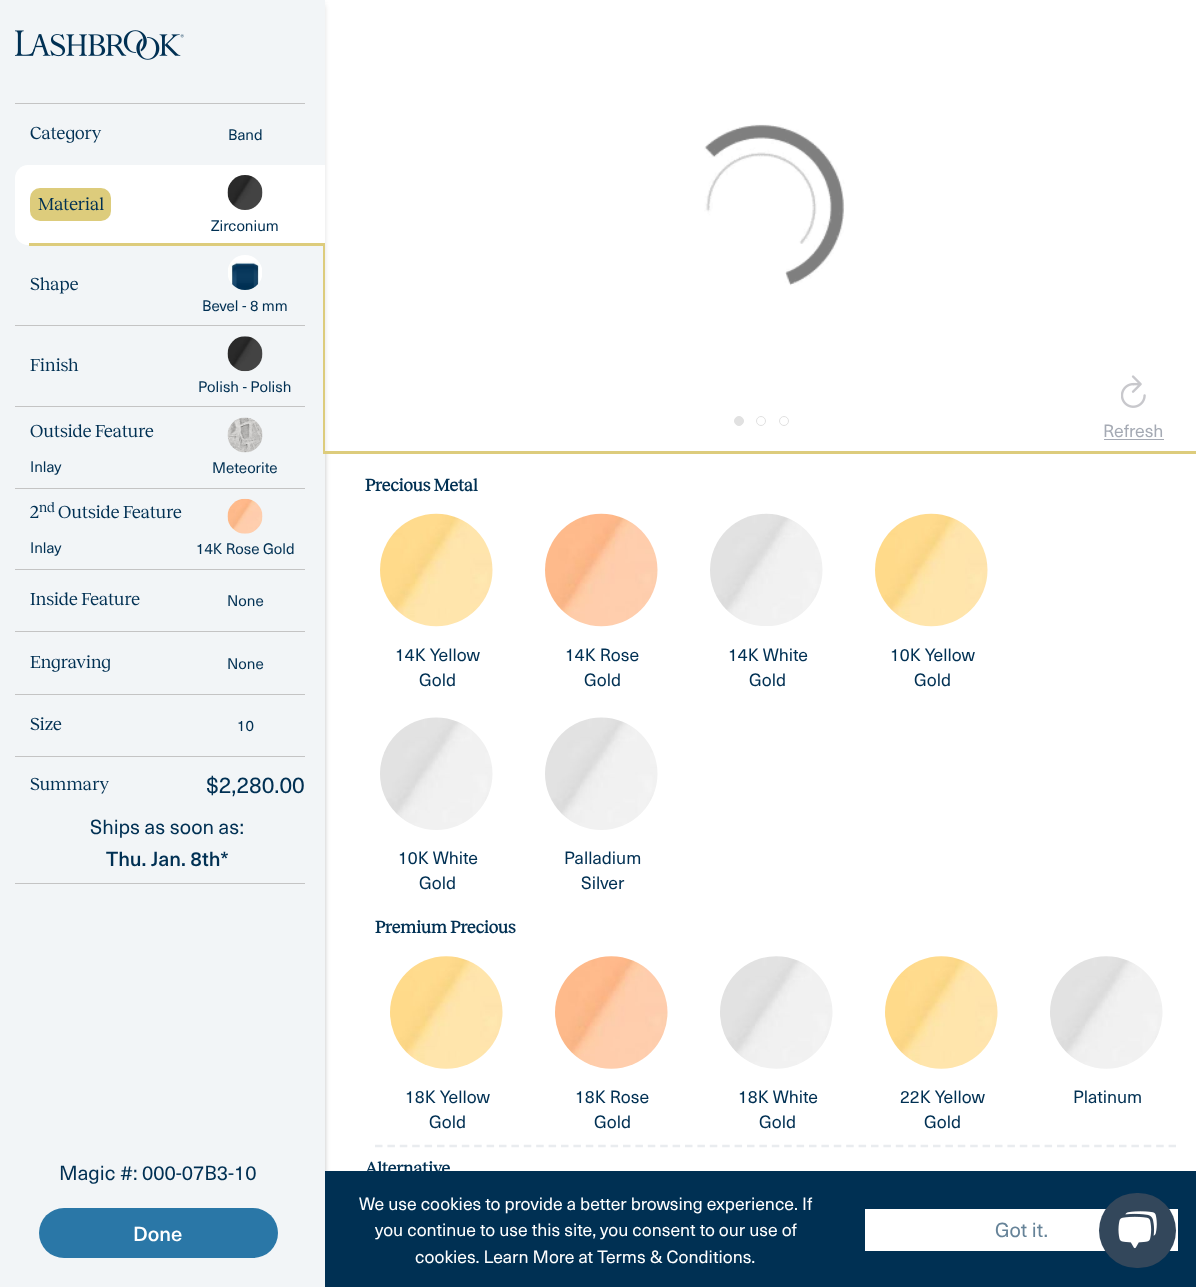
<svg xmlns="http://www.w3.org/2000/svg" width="1196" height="1287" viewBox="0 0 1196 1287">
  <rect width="100%" height="100%" fill="rgb(255,255,255)"/>
  <rect x="0" y="5" width="325" height="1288" fill="rgba(0,0,0,0.25)" filter="blur(2.5px)"/>
  <rect x="0" y="0" width="325" height="1287" fill="rgb(242,245,247)"/>
  <image x="15" y="30" width="169" height="30" href="pic1.png"/>
  <rect x="15" y="103" width="290" height="1" fill="rgb(196,196,196)"/>
  <text x="30" y="139" font-family="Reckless" font-size="18" fill="rgb(0,48,83)">Category</text>
  <text x="228" y="140" font-family="'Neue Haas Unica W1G'" font-size="15" fill="rgb(0,48,83)">Band</text>
  <path d="M28 165H325V245H28C21 245 15 239 15 232V178C15 171 21 165 28 165Z" fill="rgb(255,255,255)"/>
  <rect x="30" y="188" width="81" height="33" rx="10" fill="rgb(221,204,124)"/>
  <text x="38" y="210" font-family="Reckless" font-size="18" fill="rgb(0,48,83)">Material</text>
  <image x="227" y="175" width="36" height="35" href="pic2.png"/>
  <text x="211" y="231" font-family="'Neue Haas Unica W1G'" font-size="15" fill="rgb(0,48,83)">Zirconium</text>
  <rect x="29" y="243" width="296" height="3" fill="rgb(221,204,124)"/>
  <rect x="323" y="245" width="2" height="209" fill="rgb(221,204,124)"/>
  <text x="30" y="290" font-family="Reckless" font-size="18" fill="rgb(0,48,83)">Shape</text>
  <image x="228" y="255" width="34" height="35" href="pic3.png"/>
  <text x="202" y="311" font-family="'Neue Haas Unica W1G'" font-size="15" fill="rgb(0,48,83)">Bevel - 8 mm</text>
  <rect x="15" y="325" width="290" height="1" fill="rgb(196,196,196)"/>
  <text x="30" y="371" font-family="Reckless" font-size="18" fill="rgb(0,48,83)">Finish</text>
  <image x="227" y="336" width="36" height="36" href="pic4.png"/>
  <text x="198" y="392" font-family="'Neue Haas Unica W1G'" font-size="15" fill="rgb(0,48,83)">Polish - Polish</text>
  <rect x="15" y="406" width="290" height="1" fill="rgb(196,196,196)"/>
  <text x="30" y="437" font-family="Reckless" font-size="18" fill="rgb(0,48,83)">Outside Feature</text>
  <text x="30" y="472" font-family="'Neue Haas Unica W1G'" font-size="15" fill="rgb(0,48,83)">Inlay</text>
  <image x="227" y="417" width="36" height="36" href="pic5.png"/>
  <text x="212" y="473" font-family="'Neue Haas Unica W1G'" font-size="15" fill="rgb(0,48,83)">Meteorite</text>
  <rect x="15" y="488" width="290" height="1" fill="rgb(196,196,196)"/>
  <text x="30" y="518" font-family="Reckless" font-size="18" fill="rgb(0,48,83)">2</text>
  <text x="39" y="512" font-family="Reckless" font-size="14" fill="rgb(0,48,83)">nd</text>
  <text x="58" y="518" font-family="Reckless" font-size="18" fill="rgb(0,48,83)">Outside Feature</text>
  <text x="30" y="553" font-family="'Neue Haas Unica W1G'" font-size="15" fill="rgb(0,48,83)">Inlay</text>
  <image x="227" y="498" width="36" height="36" href="pic6.png"/>
  <text x="196" y="554" font-family="'Neue Haas Unica W1G'" font-size="15" fill="rgb(0,48,83)">14K Rose Gold</text>
  <rect x="15" y="569" width="290" height="1" fill="rgb(196,196,196)"/>
  <text x="30" y="605" font-family="Reckless" font-size="18" fill="rgb(0,48,83)">Inside Feature</text>
  <text x="227" y="606" font-family="'Neue Haas Unica W1G'" font-size="15" fill="rgb(0,48,83)">None</text>
  <rect x="15" y="631" width="290" height="1" fill="rgb(196,196,196)"/>
  <text x="30" y="668" font-family="Reckless" font-size="18" fill="rgb(0,48,83)">Engraving</text>
  <text x="227" y="669" font-family="'Neue Haas Unica W1G'" font-size="15" fill="rgb(0,48,83)">None</text>
  <rect x="15" y="694" width="290" height="1" fill="rgb(196,196,196)"/>
  <text x="30" y="730" font-family="Reckless" font-size="18" fill="rgb(0,48,83)">Size</text>
  <text x="237" y="731" font-family="'Neue Haas Unica W1G'" font-size="15" fill="rgb(0,48,83)">10</text>
  <rect x="15" y="756" width="290" height="1" fill="rgb(196,196,196)"/>
  <rect x="15" y="883" width="290" height="1" fill="rgb(196,196,196)"/>
  <text x="30" y="790" font-family="Reckless" font-size="18" fill="rgb(0,48,83)">Summary</text>
  <text x="206" y="793" font-family="'Neue Haas Unica W1G'" font-size="22.5" fill="rgb(0,48,83)">$2,280.00</text>
  <text x="90" y="834" font-family="'Neue Haas Unica W1G'" font-size="20" fill="rgb(0,48,83)">Ships as soon as:</text>
  <text x="106" y="866" font-family="'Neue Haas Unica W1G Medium'" font-size="20" font-weight="500" fill="rgb(0,48,83)">Thu. Jan. 8th*</text>
  <text x="59" y="1180" font-family="'Neue Haas Unica W1G'" font-size="20" fill="rgb(0,48,83)">Magic #: 000-07B3-10</text>
  <rect x="39" y="1208" width="239" height="50" rx="25" fill="rgb(42,119,167)"/>
  <text x="133" y="1241" font-family="'Neue Haas Unica W1G Medium'" font-size="20" font-weight="500" fill="rgb(255,255,255)">Done</text>
  <circle cx="739" cy="421" r="4.5" fill="rgb(194,194,194)" stroke="rgb(194,194,194)"/>
  <circle cx="761" cy="421" r="4.5" fill="none" stroke="rgb(194,194,194)"/>
  <circle cx="784" cy="421" r="4.5" fill="none" stroke="rgb(194,194,194)"/>
  <image x="1121" y="375" width="25" height="33" href="pic8.png"/>
  <text x="1103" y="437" font-family="'Neue Haas Unica W1G'" font-size="17.5" fill="rgb(74,85,104)">Refresh</text>
  <rect x="1104" y="439" width="60" height="1" fill="rgb(74,85,104)"/>
  <rect x="325" y="3" width="839" height="448" fill="rgba(255,255,255,0.5)"/>
  <image x="704" y="124" width="141" height="162" href="pic7.png"/>
  <rect x="325" y="451" width="871" height="3" fill="rgb(221,204,124)"/>
  <text x="365" y="491" font-family="Reckless" font-size="17.5" font-weight="bold" fill="rgb(0,48,83)">Precious Metal</text>
  <image x="380" y="513" width="113" height="114" href="pic9.png"/>
  <g font-family="'Neue Haas Unica W1G'" font-size="17.5" fill="rgb(0,48,83)">
    <text x="395" y="661">14K Yellow</text>
    <text x="419" y="686">Gold</text>
  </g>
  <image x="545" y="513" width="113" height="114" href="pic10.png"/>
  <g font-family="'Neue Haas Unica W1G'" font-size="17.5" fill="rgb(0,48,83)">
    <text x="565" y="661">14K Rose</text>
    <text x="584" y="686">Gold</text>
  </g>
  <image x="710" y="513" width="113" height="113" href="pic11.png"/>
  <g font-family="'Neue Haas Unica W1G'" font-size="17.5" fill="rgb(0,48,83)">
    <text x="728" y="661">14K White</text>
    <text x="749" y="686">Gold</text>
  </g>
  <image x="875" y="513" width="113" height="114" href="pic12.png"/>
  <g font-family="'Neue Haas Unica W1G'" font-size="17.5" fill="rgb(0,48,83)">
    <text x="890" y="661">10K Yellow</text>
    <text x="914" y="686">Gold</text>
  </g>
  <image x="380" y="717" width="113" height="113" href="pic13.png"/>
  <g font-family="'Neue Haas Unica W1G'" font-size="17.5" fill="rgb(0,48,83)">
    <text x="398" y="864">10K White</text>
    <text x="419" y="889">Gold</text>
  </g>
  <image x="545" y="717" width="113" height="113" href="pic14.png"/>
  <g font-family="'Neue Haas Unica W1G'" font-size="17.5" fill="rgb(0,48,83)">
    <text x="564" y="864">Palladium</text>
    <text x="581" y="889">Silver</text>
  </g>
  <path d="M375 1146H1176" fill="none" stroke="rgb(233,236,239)" stroke-width="2.5" stroke-dasharray="7.5 4.9"/>
  <text x="375" y="933" font-family="Reckless" font-size="17.5" font-weight="bold" fill="rgb(0,48,83)">Premium Precious</text>
  <image x="390" y="956" width="113" height="113" href="pic15.png"/>
  <g font-family="'Neue Haas Unica W1G'" font-size="17.5" fill="rgb(0,48,83)">
    <text x="405" y="1103">18K Yellow</text>
    <text x="429" y="1128">Gold</text>
  </g>
  <image x="555" y="956" width="113" height="113" href="pic16.png"/>
  <g font-family="'Neue Haas Unica W1G'" font-size="17.5" fill="rgb(0,48,83)">
    <text x="575" y="1103">18K Rose</text>
    <text x="594" y="1128">Gold</text>
  </g>
  <image x="720" y="956" width="113" height="113" href="pic17.png"/>
  <g font-family="'Neue Haas Unica W1G'" font-size="17.5" fill="rgb(0,48,83)">
    <text x="738" y="1103">18K White</text>
    <text x="759" y="1128">Gold</text>
  </g>
  <image x="885" y="956" width="113" height="113" href="pic18.png"/>
  <g font-family="'Neue Haas Unica W1G'" font-size="17.5" fill="rgb(0,48,83)">
    <text x="900" y="1103">22K Yellow</text>
    <text x="924" y="1128">Gold</text>
  </g>
  <image x="1050" y="956" width="113" height="113" href="pic19.png"/>
  <text x="1073" y="1103" font-family="'Neue Haas Unica W1G'" font-size="17.5" fill="rgb(0,48,83)">Platinum</text>
  <text x="365" y="1174" font-family="Reckless" font-size="17.5" font-weight="bold" fill="rgb(0,48,83)">Alternative</text>
  <rect x="325" y="1171" width="871" height="116" fill="rgb(0,48,83)"/>
  <g font-family="'Neue Haas Unica W1G'" font-size="17.5" fill="rgb(255,255,255)">
    <text x="359" y="1210">We use cookies to provide a better browsing experience. If</text>
    <text x="375" y="1236">you continue to use this site, you consent to our use of</text>
    <text x="415" y="1263">cookies. Learn More at Terms &amp; Conditions.</text>
  </g>
  <rect x="865" y="1209" width="313" height="42" fill="rgb(255,255,255)"/>
  <text x="995" y="1237" font-family="'Neue Haas Unica W1G'" font-size="20" fill="rgb(102,131,152)">Got it.</text>
  <rect x="1099" y="1193" width="77" height="75" rx="37.5" fill="rgb(51,71,91)"/>
  <image x="1118" y="1211" width="39" height="38" href="pic20.png"/>
</svg>
